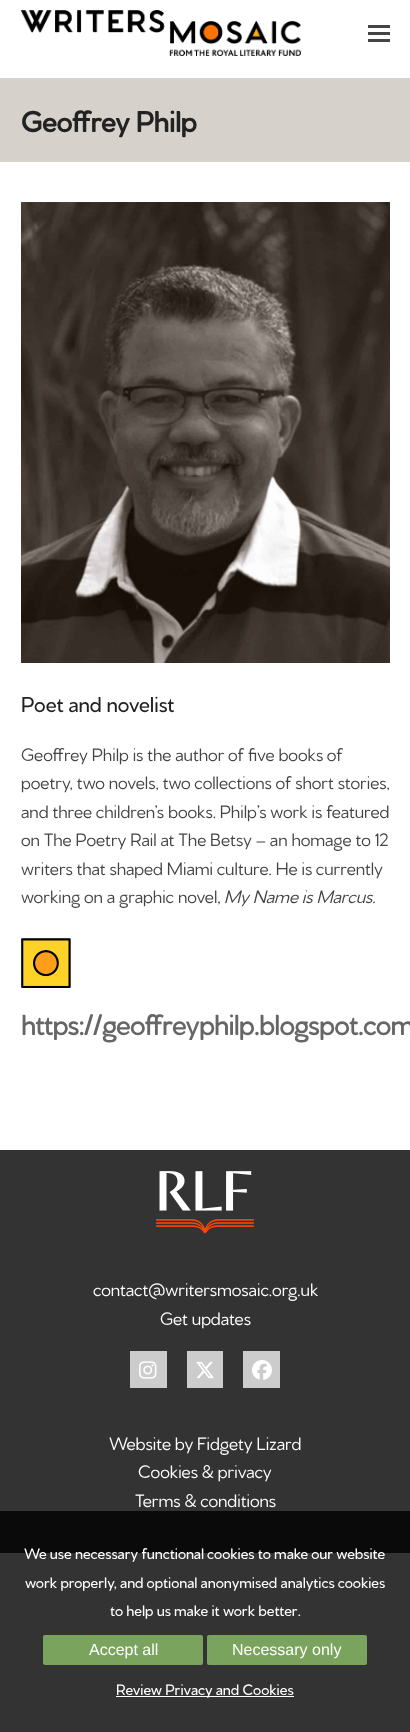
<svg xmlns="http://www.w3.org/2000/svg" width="410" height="1732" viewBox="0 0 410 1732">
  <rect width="100%" height="100%" fill="rgb(255,255,255)"/>
  <rect x="0" y="1553" width="410" height="179" fill="rgb(51,51,51)"/>
  <image x="21" y="10" width="280" height="46" href="pic1.png"/>
  <rect x="368" y="32" width="22" height="3" fill="rgb(68,68,68)"/>
  <rect x="368" y="25" width="22" height="3" fill="rgb(68,68,68)"/>
  <rect x="368" y="39" width="22" height="3" fill="rgb(68,68,68)"/>
  <rect x="0" y="78" width="410" height="84" fill="rgb(214,209,202)"/>
  <text x="21" y="132" font-family="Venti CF" font-size="30.5" font-weight="bold" fill="rgb(34,34,34)">Geoffrey Philp</text>
  <image x="21" y="202" width="369" height="461" href="pic2.png"/>
  <text x="21" y="712" font-family="Venti CF" font-size="22.75" font-weight="500" fill="rgb(34,34,34)">Poet and novelist</text>
  <g font-family="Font" font-size="19" fill="rgb(68,68,68)">
    <text>
      <tspan x="21" y="761">Geoffrey Philp is the author of five books of</tspan>
      <tspan x="21" y="789">poetry, two novels, two collections of short stories,</tspan>
      <tspan x="21" y="818">and three children’s books. Philp’s work is featured</tspan>
      <tspan x="21" y="846">on The Poetry Rail at The Betsy – an homage to 12</tspan>
      <tspan x="21" y="875">writers that shaped Miami culture. He is currently</tspan>
      <tspan x="21" y="903">working on a graphic novel,</tspan>
    </text>
  </g>
  <text x="224" y="903" font-family="Font" font-size="19" font-style="italic" fill="rgb(68,68,68)">My Name is Marcus.</text>
  <image x="21" y="938" width="50" height="50" href="pic3.png"/>
  <text x="21" y="1035" font-family="Font" font-size="29.25" font-weight="bold" fill="rgb(102,102,102)">https://geoffreyphilp.blogspot.com</text>
  <rect x="0" y="1150" width="410" height="361" fill="rgb(51,51,51)"/>
  <rect x="0" y="1511" width="410" height="42" fill="rgb(10,10,10)"/>
  <image x="156" y="1171" width="98" height="63" href="pic4.png"/>
  <g font-family="Font" font-size="19" fill="rgb(255,255,255)">
    <text x="93" y="1296">contact@writersmosaic.org.uk</text>
    <text x="160" y="1325">Get updates</text>
  </g>
  <rect x="130" y="1351" width="37" height="37" fill="rgb(204,204,204)"/>
  <image x="139" y="1361" width="18" height="18" href="pic5.png"/>
  <rect x="187" y="1351" width="36" height="37" fill="rgb(204,204,204)"/>
  <image x="196" y="1361" width="18" height="18" href="pic6.png"/>
  <rect x="243" y="1351" width="37" height="37" fill="rgb(204,204,204)"/>
  <image x="252" y="1360" width="20" height="20" href="pic7.png"/>
  <g font-family="Font" font-size="19" fill="rgb(255,255,255)">
    <text x="109" y="1450">Website by Fidgety Lizard</text>
    <text x="138" y="1478">Cookies &amp; privacy</text>
    <text x="135" y="1507">Terms &amp; conditions</text>
  </g>
  <g font-family="Venti CF" font-size="16" font-weight="500" fill="rgb(255,255,255)">
    <text x="24" y="1559">We use necessary functional cookies to make our website</text>
    <text x="25" y="1588">work properly, and optional anonymised analytics cookies</text>
    <text x="110" y="1616">to help us make it work better.</text>
  </g>
  <rect x="43" y="1635" width="160" height="30" rx="2" fill="rgb(122,163,93)"/>
  <text x="89" y="1655" font-family="Liberation Sans" font-size="16" fill="rgb(255,255,255)">Accept all</text>
  <rect x="207" y="1635" width="160" height="30" rx="2" fill="rgb(122,163,93)"/>
  <text x="232" y="1655" font-family="Liberation Sans" font-size="16" fill="rgb(255,255,255)">Necessary only</text>
  <rect x="116" y="1696" width="178" height="1" fill="rgb(255,255,255)"/>
  <text x="116" y="1695" font-family="Venti CF" font-size="16" font-weight="500" fill="rgb(255,255,255)">Review Privacy and Cookies</text>
</svg>
